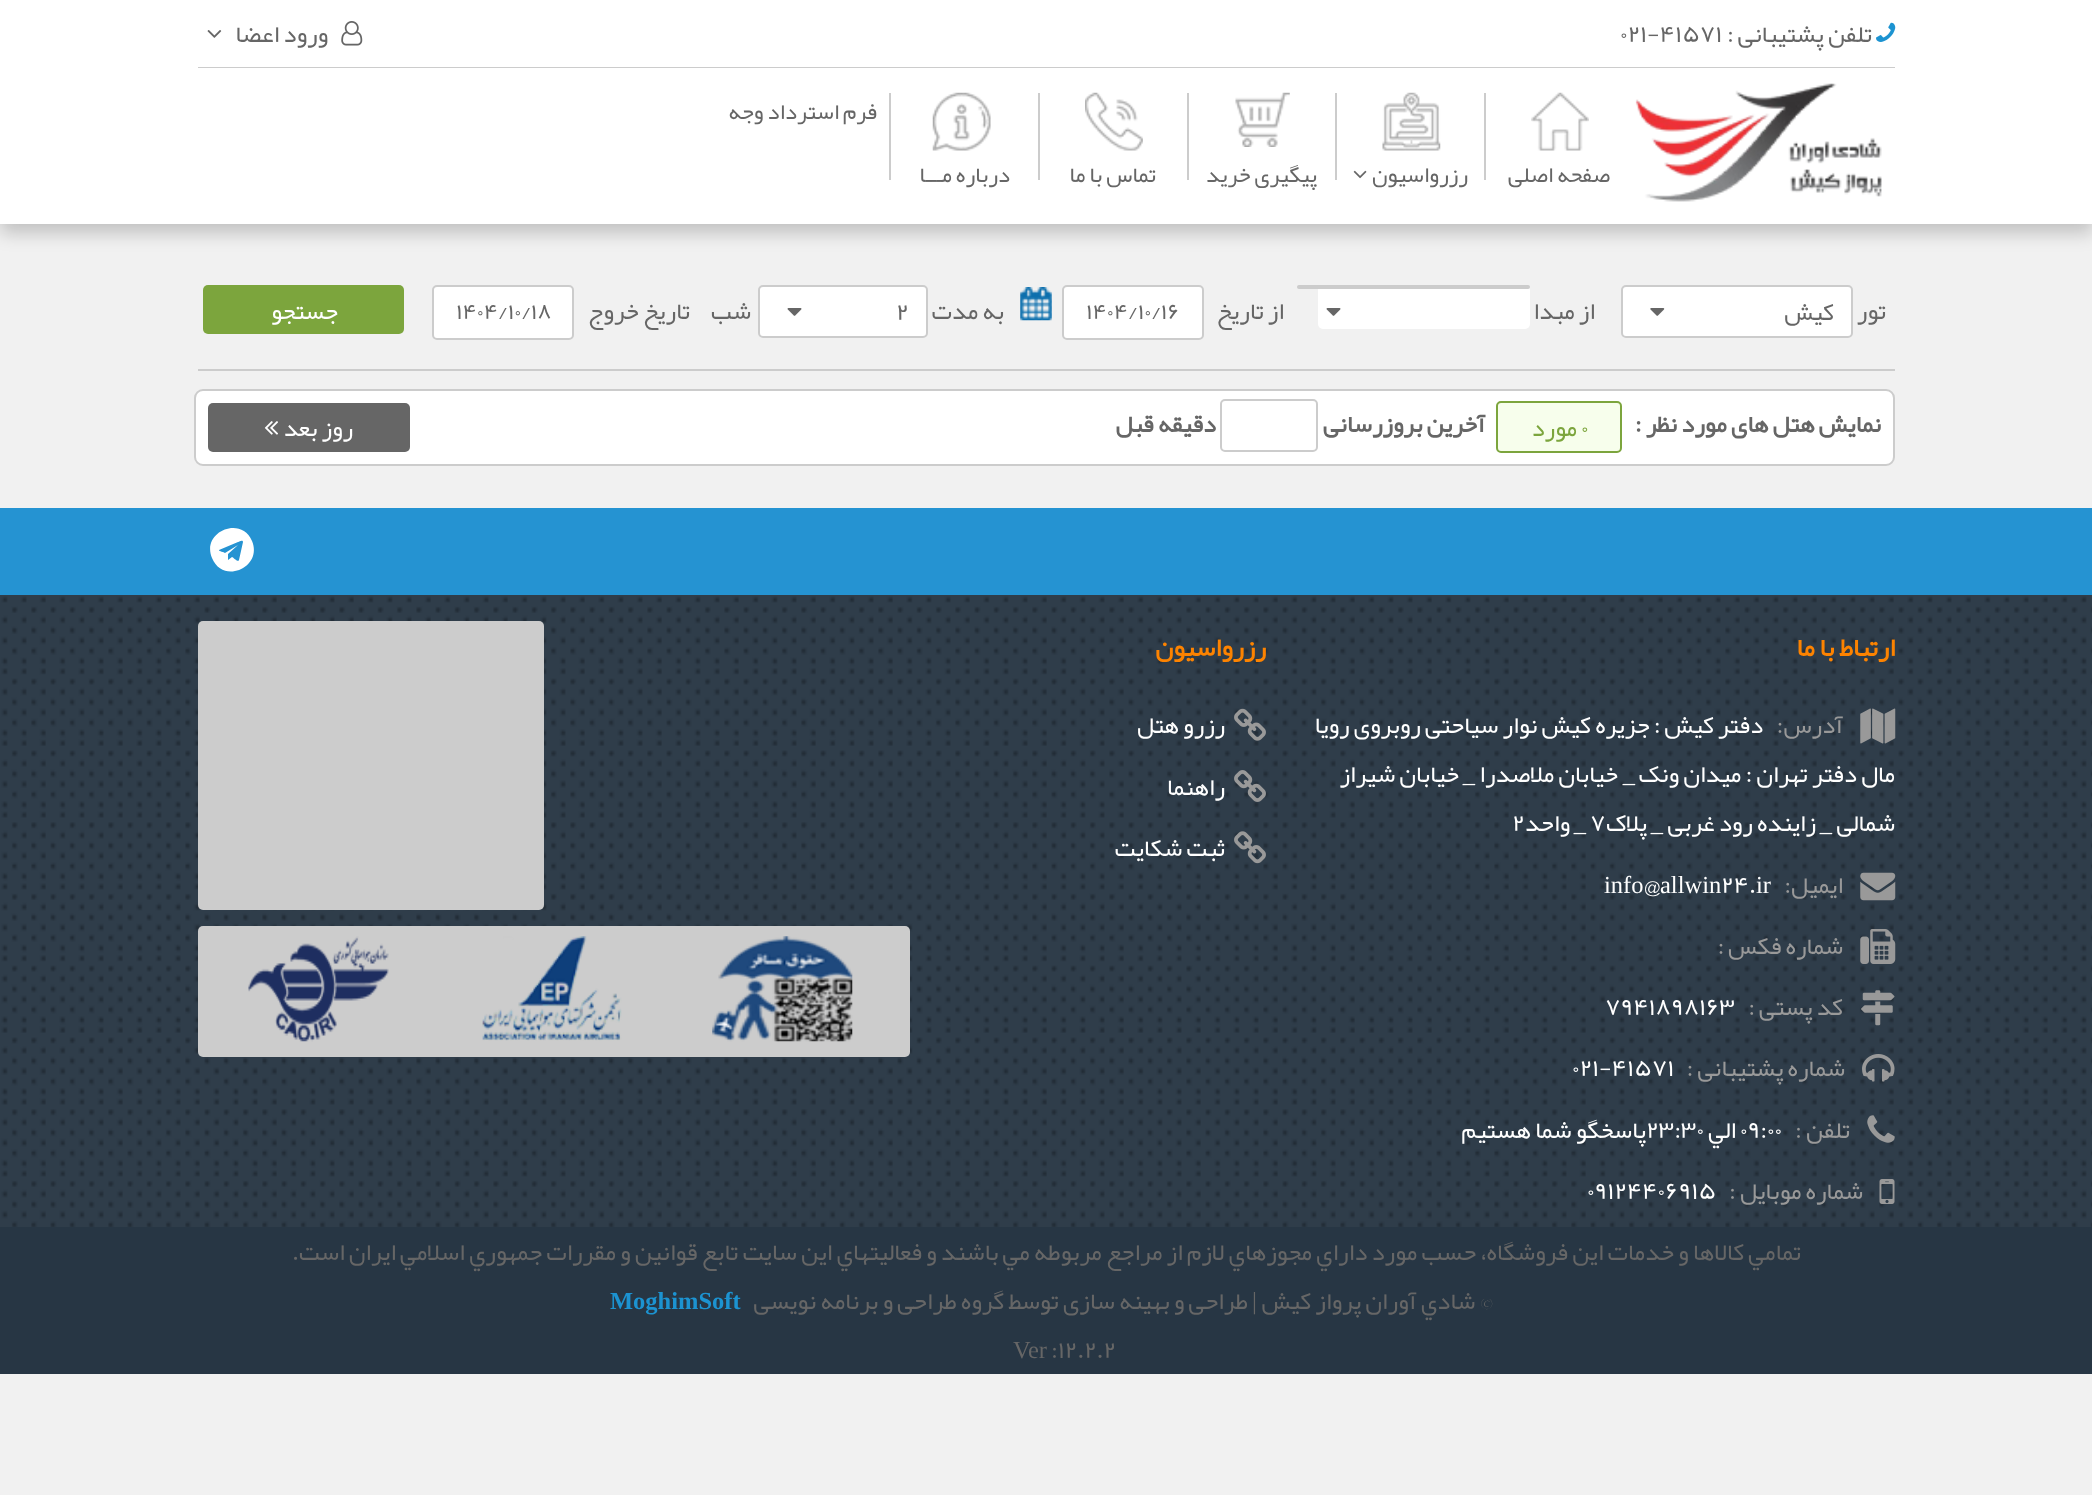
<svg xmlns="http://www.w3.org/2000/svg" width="2092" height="1495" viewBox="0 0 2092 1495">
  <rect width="100%" height="100%" fill="rgb(241,241,241)"/>
  <rect x="0" y="9" width="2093" height="224" fill="rgba(0,0,0,0.2)" filter="blur(9px)"/>
  <rect x="0" y="0" width="2092" height="224" fill="rgb(255,255,255)"/>
  <rect x="198" y="67" width="1697" height="1" fill="rgb(204,204,204)"/>
  <image x="1876" y="22" width="20" height="20" href="pic1.png"/>
  <text x="1872" y="42" font-family="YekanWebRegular" font-size="24.5" direction="rtl" fill="rgb(102,102,102)">تلفن پشتیبانی :</text>
  <text x="1620" y="42" font-family="YekanWebRegular" font-size="24.5" fill="rgb(102,102,102)">021-41571</text>
  <image x="341" y="21" width="22" height="25" href="pic2.png"/>
  <text x="328" y="42" font-family="YekanWebRegular" font-size="24.5" direction="rtl" fill="rgb(102,102,102)">ورود اعضا</text>
  <image x="207" y="30" width="15" height="8" href="pic3.png"/>
  <image x="1635" y="83" width="247" height="119" href="pic4.png"/>
  <rect x="889" y="93" width="2" height="87" fill="rgb(204,204,204)"/>
  <text x="877" y="119" font-family="YekanWebRegular" font-size="22.75" direction="rtl" fill="rgb(102,102,102)">فرم استرداد وجه</text>
  <rect x="1484" y="93" width="2" height="87" fill="rgb(204,204,204)"/>
  <image x="1531" y="92" width="58" height="59" href="pic5.png"/>
  <text x="1610" y="182" font-family="YekanWebRegular" font-size="22.75" direction="rtl" fill="rgb(102,102,102)">صفحه اصلی</text>
  <rect x="1335" y="93" width="2" height="87" fill="rgb(204,204,204)"/>
  <image x="1382" y="92" width="59" height="59" href="pic6.png"/>
  <text x="1468" y="182" font-family="YekanWebRegular" font-size="22.75" direction="rtl" fill="rgb(102,102,102)">رزرواسیون</text>
  <image x="1353" y="170" width="14" height="9" href="pic7.png"/>
  <rect x="1187" y="93" width="2" height="87" fill="rgb(204,204,204)"/>
  <image x="1235" y="92" width="55" height="55" href="pic8.png"/>
  <text x="1317" y="182" font-family="YekanWebRegular" font-size="22.75" direction="rtl" fill="rgb(102,102,102)">پیگیری خرید</text>
  <rect x="1038" y="93" width="2" height="87" fill="rgb(204,204,204)"/>
  <image x="1085" y="92" width="58" height="59" href="pic9.png"/>
  <text x="1156" y="182" font-family="YekanWebRegular" font-size="22.75" direction="rtl" fill="rgb(102,102,102)">تماس با ما</text>
  <image x="932" y="92" width="59" height="59" href="pic10.png"/>
  <text x="1010" y="182" font-family="YekanWebRegular" font-size="22.75" direction="rtl" fill="rgb(102,102,102)">درباره مـــا</text>
  <rect x="198" y="369" width="1697" height="2" fill="rgb(204,204,204)"/>
  <text x="1886" y="319" font-family="YekanWebRegular" font-size="24.5" direction="rtl" fill="rgb(102,102,102)">تور</text>
  <rect x="1622" y="286" width="230" height="51" rx="4" fill="rgb(255,255,255)" stroke="rgb(204,204,204)" stroke-width="2"/>
  <text x="1834" y="320" font-family="YekanWebRegular" font-size="24.5" direction="rtl" fill="rgb(102,102,102)">کيش</text>
  <image x="1650" y="308" width="15" height="8" href="pic11.png"/>
  <text x="1595" y="319" font-family="YekanWebRegular" font-size="24.5" direction="rtl" fill="rgb(102,102,102)">از مبدا</text>
  <rect x="1318" y="285" width="212" height="44" rx="5" fill="rgb(255,255,255)"/>
  <rect x="1297" y="285" width="233" height="4" rx="2" fill="rgb(204,204,204)"/>
  <image x="1326" y="308" width="15" height="8" href="pic12.png"/>
  <text x="1284" y="319" font-family="YekanWebRegular" font-size="24.5" direction="rtl" fill="rgb(102,102,102)">از تاریخ</text>
  <rect x="1063" y="286" width="140" height="53" rx="4" fill="rgb(255,255,255)" stroke="rgb(204,204,204)" stroke-width="2"/>
  <text x="1086" y="319" font-family="YekanWebRegular" font-size="22.75" fill="rgb(102,102,102)">1404/10/16</text>
  <image x="1020" y="287" width="32" height="34" href="pic13.png"/>
  <text x="1004" y="319" font-family="YekanWebRegular" font-size="24.5" direction="rtl" fill="rgb(102,102,102)">به مدت</text>
  <rect x="759" y="286" width="168" height="51" rx="4" fill="rgb(255,255,255)" stroke="rgb(204,204,204)" stroke-width="2"/>
  <text x="896" y="320" font-family="YekanWebRegular" font-size="24.5" fill="rgb(102,102,102)">2</text>
  <image x="787" y="308" width="15" height="8" href="pic12.png"/>
  <g font-family="YekanWebRegular" font-size="24.5" direction="rtl" fill="rgb(102,102,102)">
    <text x="751" y="319">شب</text>
    <text x="690" y="319">تاریخ خروج</text>
  </g>
  <rect x="433" y="286" width="140" height="53" rx="4" fill="rgb(255,255,255)" stroke="rgb(204,204,204)" stroke-width="2"/>
  <text x="456" y="319" font-family="YekanWebRegular" font-size="22.75" fill="rgb(102,102,102)">1404/10/18</text>
  <rect x="203" y="285" width="201" height="49" rx="5" fill="rgb(124,165,61)"/>
  <text x="338" y="319" font-family="YekanWebRegular" font-size="24.5" direction="rtl" fill="rgb(255,255,255)">جستجو</text>
  <rect x="195" y="390" width="1699" height="75" rx="8" fill="rgb(255,255,255)" stroke="rgb(204,204,204)" stroke-width="2"/>
  <text x="1881" y="432" font-family="YekanWebRegular" font-size="24.5" font-weight="bold" direction="rtl" fill="rgb(102,102,102)">نمایش هتل های مورد نظر :</text>
  <rect x="1497" y="402" width="124" height="50" rx="4" fill="rgb(247,254,236)" stroke="rgb(124,165,61)" stroke-width="2"/>
  <text x="1581" y="436" font-family="YekanWebRegular" font-size="24.5" fill="rgb(124,165,61)">0</text>
  <text x="1577" y="436" font-family="YekanWebRegular" font-size="24.5" direction="rtl" fill="rgb(124,165,61)">مورد</text>
  <text x="1485" y="432" font-family="YekanWebRegular" font-size="24.5" font-weight="bold" direction="rtl" fill="rgb(102,102,102)">آخرین بروزرسانی</text>
  <rect x="1221" y="400" width="96" height="51" rx="4" fill="none" stroke="rgb(204,204,204)" stroke-width="2"/>
  <text x="1216" y="432" font-family="YekanWebRegular" font-size="24.5" font-weight="bold" direction="rtl" fill="rgb(102,102,102)">دقیقه قبل</text>
  <rect x="208" y="403" width="202" height="49" rx="5" fill="rgb(102,102,102)"/>
  <text x="353" y="436" font-family="YekanWebRegular" font-size="24.5" direction="rtl" fill="rgb(255,255,255)">روز بعد</text>
  <image x="264" y="421" width="14" height="14" href="pic14.png"/>
  <rect x="0" y="508" width="2092" height="87" fill="rgb(37,147,210)"/>
  <path d="M239 560L243 542C243 539 238 542 238 542L219 550C218 551 224 552 225 553L238 545C238 545 239 544 238 545L228 554V560L232 557C233 557 238 563 239 560ZM252 541C263 567 223 585 212 558C201 532 241 515 252 541Z" fill="rgb(255,255,255)"/>
  <image x="0" y="595" width="2092" height="632" href="pic15.png"/>
  <text x="1895" y="656" font-family="YekanWebRegular" font-size="26.25" font-weight="bold" direction="rtl" fill="rgb(253,131,0)">ارتباط با ما</text>
  <image x="1860" y="708" width="36" height="36" href="pic16.png"/>
  <text x="1843" y="733" font-family="YekanWebRegular" font-size="24.5" direction="rtl" fill="rgb(153,153,153)">آدرس:</text>
  <g font-family="YekanWebRegular" font-size="24.5" direction="rtl" fill="rgb(255,255,255)">
    <text x="1763" y="733">دفتر کیش : جزیره کیش نوار سیاحتی روبروی رویا</text>
    <text x="1895" y="782">مال دفتر تهران : میدان ونک</text>
  </g>
  <text x="1635" y="782" font-family="Liberation Serif" font-size="24.5" direction="rtl" fill="rgb(255,255,255)">_</text>
  <text x="1618" y="782" font-family="YekanWebRegular" font-size="24.5" direction="rtl" fill="rgb(255,255,255)">خیابان ملاصدرا</text>
  <text x="1475" y="782" font-family="Liberation Serif" font-size="24.5" direction="rtl" fill="rgb(255,255,255)">_</text>
  <g font-family="YekanWebRegular" font-size="24.5" direction="rtl" fill="rgb(255,255,255)">
    <text x="1459" y="782">خیابان شیراز</text>
    <text x="1895" y="831">شمالی</text>
  </g>
  <text x="1832" y="831" font-family="Liberation Serif" font-size="24.5" direction="rtl" fill="rgb(255,255,255)">_</text>
  <text x="1816" y="831" font-family="YekanWebRegular" font-size="24.5" direction="rtl" fill="rgb(255,255,255)">زاینده رود غربی</text>
  <text x="1663" y="831" font-family="Liberation Serif" font-size="24.5" direction="rtl" fill="rgb(255,255,255)">_</text>
  <text x="1647" y="831" font-family="YekanWebRegular" font-size="24.5" direction="rtl" fill="rgb(255,255,255)">پلاک</text>
  <text x="1590" y="831" font-family="YekanWebRegular" font-size="24.5" fill="rgb(255,255,255)">7</text>
  <text x="1586" y="831" font-family="Liberation Serif" font-size="24.5" direction="rtl" fill="rgb(255,255,255)">_</text>
  <text x="1570" y="831" font-family="YekanWebRegular" font-size="24.5" direction="rtl" fill="rgb(255,255,255)">واحد</text>
  <text x="1512" y="831" font-family="YekanWebRegular" font-size="24.5" fill="rgb(255,255,255)">2</text>
  <image x="1860" y="872" width="36" height="29" href="pic17.png"/>
  <text x="1843" y="893" font-family="YekanWebRegular" font-size="24.5" direction="rtl" fill="rgb(153,153,153)">ایمیل:</text>
  <text x="1756" y="893" font-family="Liberation Serif" font-size="24.5" fill="rgb(255,255,255)">ir</text>
  <text x="1721" y="893" font-family="YekanWebRegular" font-size="24.5" fill="rgb(255,255,255)">24.</text>
  <text x="1660" y="893" font-family="Liberation Serif" font-size="24.5" fill="rgb(255,255,255)">allwin</text>
  <text x="1644" y="893" font-family="YekanWebRegular" font-size="24.5" fill="rgb(255,255,255)">@</text>
  <text x="1604" y="893" font-family="Liberation Serif" font-size="24.5" fill="rgb(255,255,255)">info</text>
  <image x="1860" y="929" width="36" height="35" href="pic18.png"/>
  <text x="1843" y="954" font-family="YekanWebRegular" font-size="24.5" direction="rtl" fill="rgb(153,153,153)">شماره فکس :</text>
  <image x="1861" y="990" width="34" height="36" href="pic19.png"/>
  <text x="1843" y="1015" font-family="YekanWebRegular" font-size="24.5" direction="rtl" fill="rgb(153,153,153)">کد پستی :</text>
  <text x="1605" y="1015" font-family="YekanWebRegular" font-size="24.5" fill="rgb(255,255,255)">7941898163</text>
  <image x="1862" y="1054" width="33" height="28" href="pic20.png"/>
  <text x="1845" y="1076" font-family="YekanWebRegular" font-size="24.5" direction="rtl" fill="rgb(153,153,153)">شماره پشتیبانی :</text>
  <text x="1572" y="1076" font-family="YekanWebRegular" font-size="24.5" fill="rgb(255,255,255)">021-41571</text>
  <image x="1867" y="1115" width="28" height="28" href="pic21.png"/>
  <text x="1850" y="1138" font-family="YekanWebRegular" font-size="24.5" direction="rtl" fill="rgb(153,153,153)">تلفن :</text>
  <text x="1740" y="1138" font-family="YekanWebRegular" font-size="24.5" fill="rgb(255,255,255)">09:00</text>
  <text x="1736" y="1138" font-family="YekanWebRegular" font-size="24.5" direction="rtl" fill="rgb(255,255,255)">الي</text>
  <text x="1646" y="1138" font-family="YekanWebRegular" font-size="24.5" fill="rgb(255,255,255)">23:30</text>
  <text x="1646" y="1138" font-family="YekanWebRegular" font-size="24.5" direction="rtl" fill="rgb(255,255,255)">پاسخگو شما هستيم</text>
  <image x="1879" y="1179" width="16" height="25" href="pic22.png"/>
  <text x="1863" y="1199" font-family="YekanWebRegular" font-size="24.5" direction="rtl" fill="rgb(153,153,153)">شماره موبایل :</text>
  <text x="1587" y="1199" font-family="YekanWebRegular" font-size="24.5" fill="rgb(255,255,255)">09124406915</text>
  <text x="1266" y="656" font-family="YekanWebRegular" font-size="26.25" font-weight="bold" direction="rtl" fill="rgb(253,131,0)">رزرواسیون</text>
  <image x="1234" y="708" width="32" height="33" href="pic23.png"/>
  <text x="1225" y="733" font-family="YekanWebRegular" font-size="24.5" direction="rtl" fill="rgb(255,255,255)">رزرو هتل</text>
  <image x="1234" y="770" width="32" height="32" href="pic24.png"/>
  <text x="1225" y="795" font-family="YekanWebRegular" font-size="24.5" direction="rtl" fill="rgb(255,255,255)">راهنما</text>
  <image x="1234" y="831" width="32" height="33" href="pic25.png"/>
  <text x="1225" y="856" font-family="YekanWebRegular" font-size="24.5" direction="rtl" fill="rgb(255,255,255)">ثبت شکایت</text>
  <rect x="198" y="621" width="346" height="289" rx="5" fill="rgb(204,204,204)"/>
  <rect x="198" y="926" width="712" height="131" rx="5" fill="rgb(204,204,204)"/>
  <image x="712" y="936" width="141" height="106" href="pic26.png"/>
  <image x="482" y="936" width="140" height="105" href="pic27.png"/>
  <image x="248" y="936" width="141" height="106" href="pic28.png"/>
  <rect x="0" y="1227" width="2092" height="147" fill="rgb(39,54,68)"/>
  <g font-family="YekanWebRegular" font-size="24.5" direction="rtl" fill="rgb(102,102,102)">
    <text x="1801" y="1260">تمامي كالاها و خدمات اين فروشگاه، حسب مورد داراي مجوزهاي لازم از مراجع مربوطه مي باشند و فعاليتهاي اين سايت تابع قوانين و مقررات جمهوري اسلامي ايران است.</text>
    <text x="1492" y="1309">© شادي آوران پرواز کيش</text>
  </g>
  <text x="1257" y="1309" font-family="Liberation Serif" font-size="24.5" direction="rtl" fill="rgb(102,102,102)">|</text>
  <text x="1248" y="1309" font-family="YekanWebRegular" font-size="24.5" direction="rtl" fill="rgb(102,102,102)">طراحی و بهينه سازی توسط گروه طراحی و برنامه نویسی</text>
  <text x="610" y="1309" font-family="Liberation Serif" font-size="24.5" font-weight="bold" fill="rgb(28,147,209)">MoghimSoft</text>
  <text x="1051" y="1358" font-family="YekanWebRegular" font-size="24.5" fill="rgb(102,102,102)">:12.2.2</text>
  <text x="1013" y="1358" font-family="Liberation Serif" font-size="24.5" fill="rgb(102,102,102)">Ver</text>
</svg>
